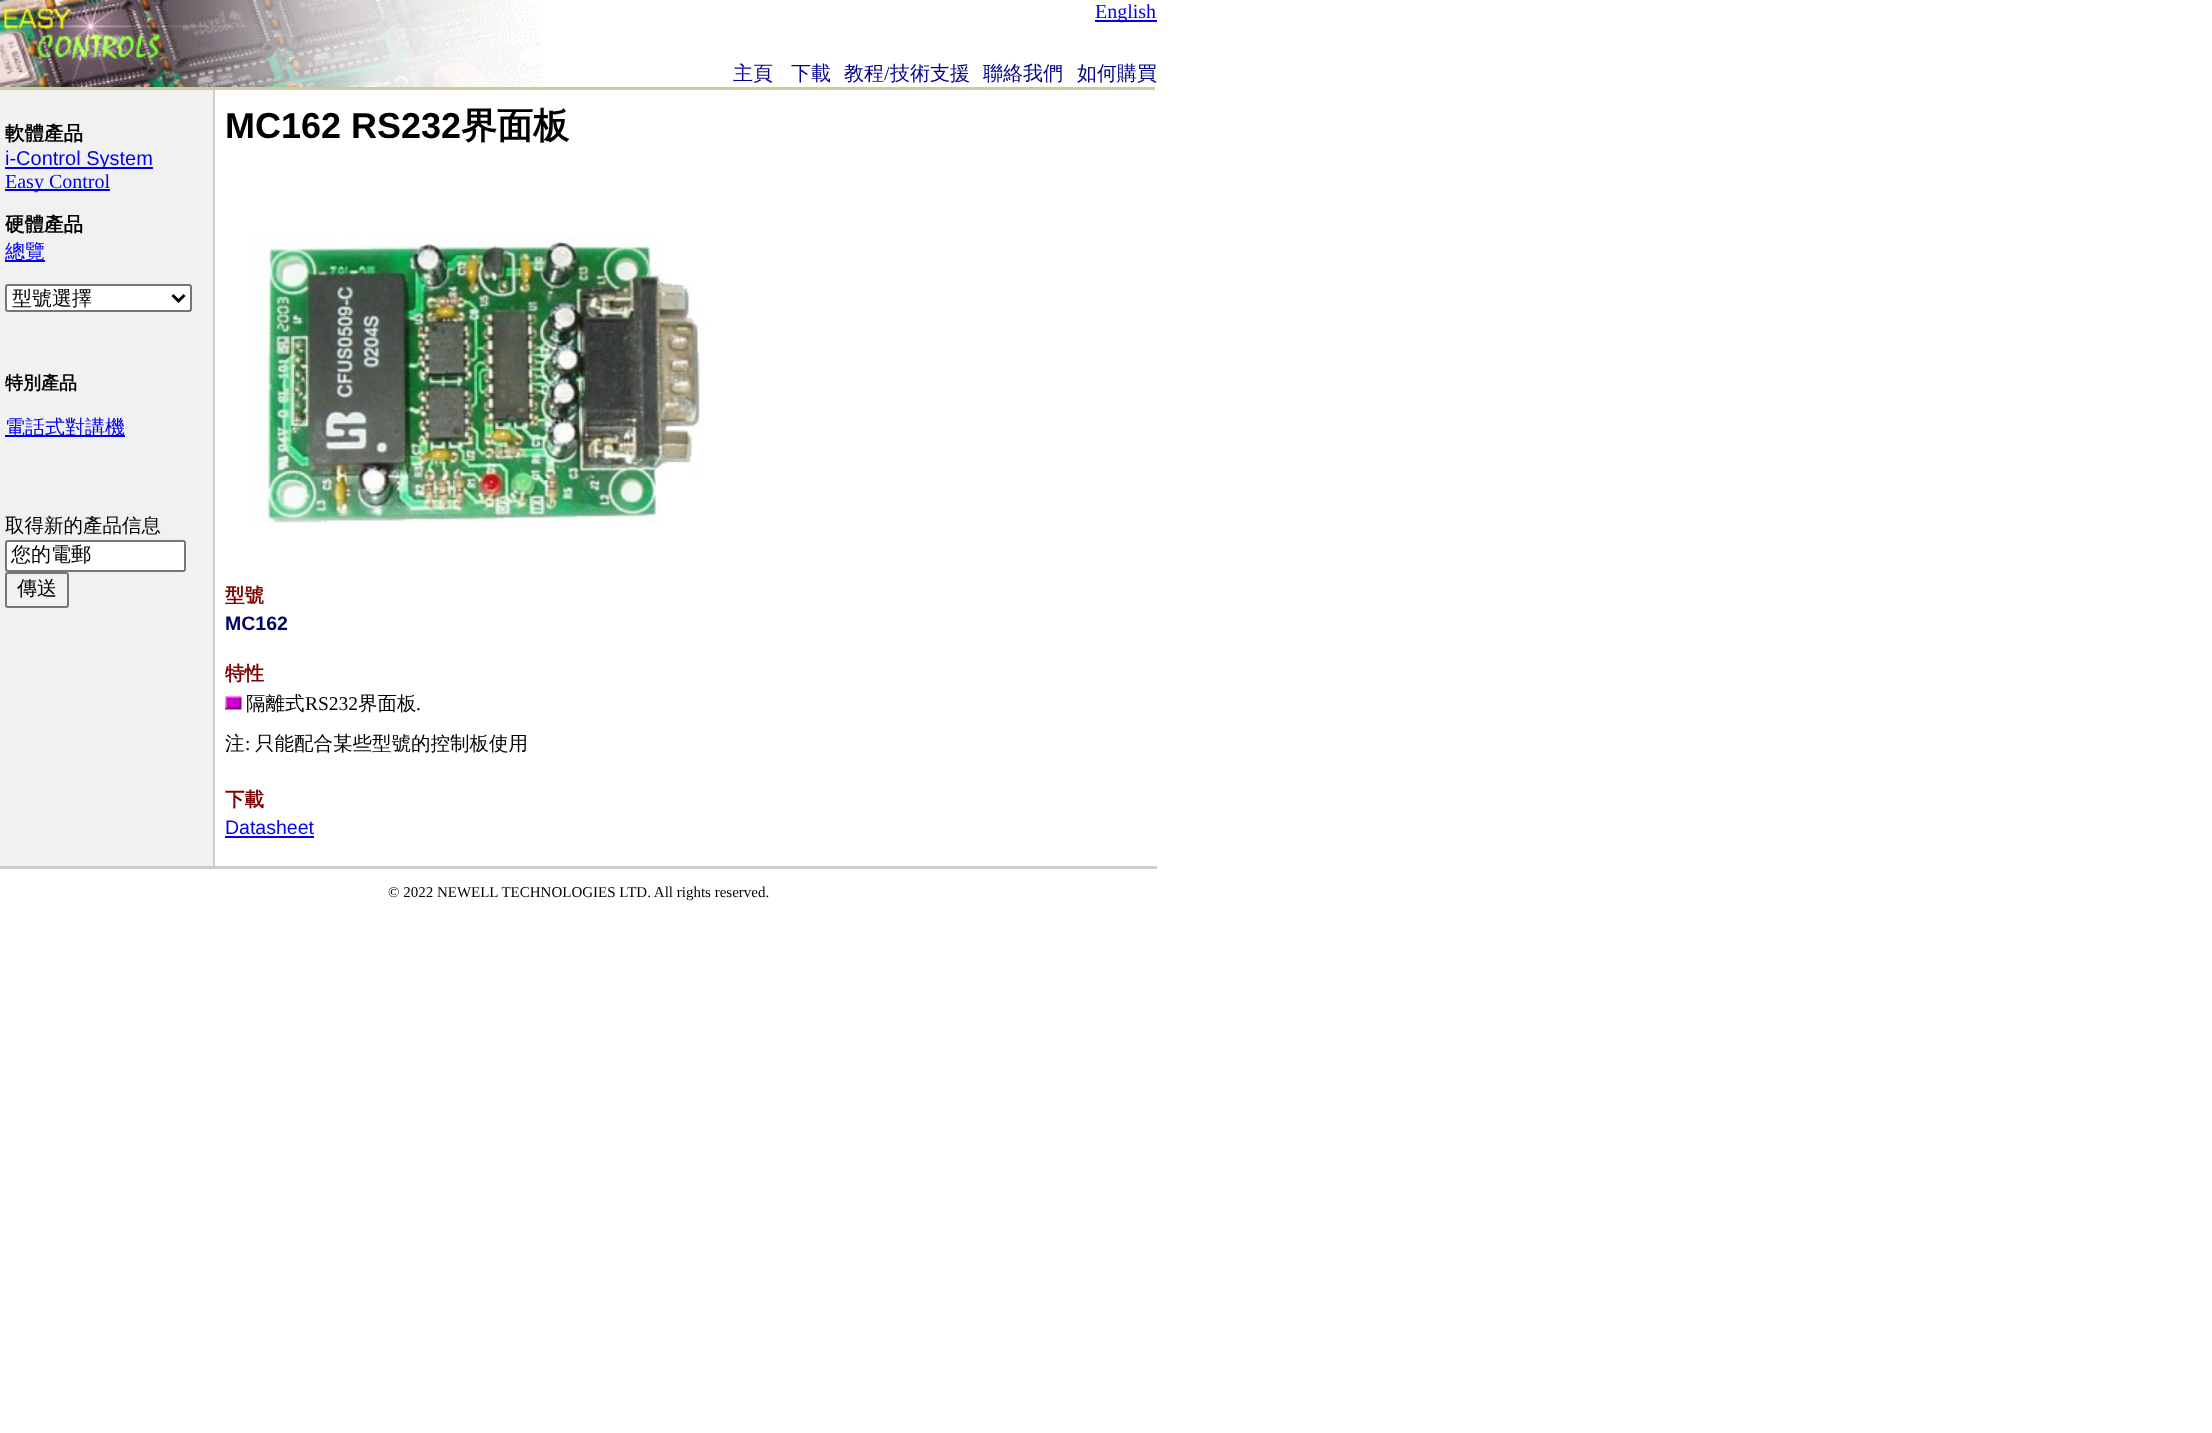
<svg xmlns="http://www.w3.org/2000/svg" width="2212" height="1433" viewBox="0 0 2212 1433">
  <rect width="100%" height="100%" fill="rgb(255,255,255)"/>
  <image x="0" y="0" width="544" height="87" href="pic1.png"/>
  <rect x="1095" y="20" width="62" height="2" fill="rgb(0,0,238)"/>
  <text x="1095" y="18" font-family="Liberation Serif" font-size="20" fill="rgb(0,0,238)">English</text>
  <g font-family="WenQuanYi Zen Hei" font-size="20" font-weight="500" fill="rgb(0,0,139)">
    <text x="733" y="80">主頁</text>
    <text x="791" y="80">下載</text>
    <text x="844" y="80">教程</text>
  </g>
  <text x="884" y="80" font-family="Liberation Serif" font-size="20" fill="rgb(0,0,139)">/</text>
  <g font-family="WenQuanYi Zen Hei" font-size="20" font-weight="500" fill="rgb(0,0,139)">
    <text x="890" y="80">技術支援</text>
    <text x="983" y="80">聯絡我們</text>
    <text x="1077" y="80">如何購買</text>
  </g>
  <rect x="0" y="87" width="1155" height="3" fill="rgb(204,204,153)"/>
  <rect x="0" y="90" width="213" height="776" fill="rgb(241,241,241)"/>
  <rect x="213" y="90" width="2" height="776" fill="rgb(204,204,204)"/>
  <text x="225" y="138" font-family="Liberation Sans" font-size="36" font-weight="bold" fill="rgb(0,0,0)">MC162 RS232</text>
  <text x="461" y="138" font-family="WenQuanYi Zen Hei" font-size="36" font-weight="bold" fill="rgb(0,0,0)">界面板</text>
  <image x="249" y="236" width="456" height="288" href="pic2.png"/>
  <text x="225" y="602" font-family="WenQuanYi Zen Hei" font-size="19.5" font-weight="bold" fill="rgb(128,0,0)">型號</text>
  <text x="225" y="630" font-family="Liberation Sans" font-size="19.5" font-weight="bold" fill="rgb(0,0,102)">MC162</text>
  <text x="225" y="680" font-family="WenQuanYi Zen Hei" font-size="19.5" font-weight="bold" fill="rgb(128,0,0)">特性</text>
  <image x="225" y="696" width="17" height="14" href="pic3.png"/>
  <text x="246" y="710" font-family="WenQuanYi Zen Hei" font-size="19.5" font-weight="500" fill="rgb(0,0,0)">隔離式</text>
  <text x="305" y="710" font-family="Liberation Serif" font-size="19.5" fill="rgb(0,0,0)">RS232</text>
  <text x="358" y="710" font-family="WenQuanYi Zen Hei" font-size="19.5" font-weight="500" fill="rgb(0,0,0)">界面板</text>
  <text x="416" y="710" font-family="Liberation Serif" font-size="19.5" fill="rgb(0,0,0)">.</text>
  <text x="225" y="750" font-family="WenQuanYi Zen Hei" font-size="19.5" font-weight="500" fill="rgb(0,0,0)">注</text>
  <text x="245" y="750" font-family="Liberation Serif" font-size="19.5" fill="rgb(0,0,0)">:</text>
  <text x="255" y="750" font-family="WenQuanYi Zen Hei" font-size="19.5" font-weight="500" fill="rgb(0,0,0)">只能配合某些型號的控制板使用</text>
  <text x="225" y="806" font-family="WenQuanYi Zen Hei" font-size="19.5" font-weight="bold" fill="rgb(128,0,0)">下載</text>
  <text x="225" y="834" font-family="Liberation Sans" font-size="19.5" fill="rgb(0,0,238)">Datasheet</text>
  <rect x="225" y="836" width="89" height="2" fill="rgb(0,0,238)"/>
  <text x="5" y="140" font-family="WenQuanYi Zen Hei" font-size="19.5" font-weight="bold" fill="rgb(0,0,0)">軟體產品</text>
  <rect x="5" y="167" width="148" height="2" fill="rgb(0,0,238)"/>
  <text x="5" y="165" font-family="Liberation Sans" font-size="20" fill="rgb(0,0,238)">i-Control System</text>
  <rect x="5" y="189" width="105" height="2" fill="rgb(0,0,238)"/>
  <text x="5" y="188" font-family="Liberation Serif" font-size="20" fill="rgb(0,0,238)">Easy Control</text>
  <text x="5" y="231" font-family="WenQuanYi Zen Hei" font-size="19.5" font-weight="bold" fill="rgb(0,0,0)">硬體產品</text>
  <rect x="5" y="260" width="40" height="2" fill="rgb(0,0,238)"/>
  <text x="5" y="258" font-family="WenQuanYi Zen Hei" font-size="20" font-weight="500" fill="rgb(0,0,238)">總覽</text>
  <rect x="6" y="285" width="185" height="26" rx="2" fill="rgb(255,255,255)" stroke="rgb(118,118,118)" stroke-width="2"/>
  <path d="M172.5 295L178.5 301L184.5 295" fill="none" stroke="rgb(0,0,0)" stroke-width="3"/>
  <text x="12" y="305" font-family="WenQuanYi Zen Hei" font-size="20" font-weight="500" fill="rgb(0,0,0)">型號選擇</text>
  <text x="5" y="389" font-family="WenQuanYi Zen Hei" font-size="18" font-weight="bold" fill="rgb(0,0,0)">特別產品</text>
  <rect x="5" y="435" width="120" height="2" fill="rgb(0,0,238)"/>
  <text x="5" y="434" font-family="WenQuanYi Zen Hei" font-size="20" font-weight="500" fill="rgb(0,0,238)">電話式對講機</text>
  <text x="5" y="532" font-family="WenQuanYi Zen Hei" font-size="19.5" font-weight="500" fill="rgb(0,0,0)">取得新的產品信息</text>
  <rect x="6" y="541" width="179" height="30" rx="2" fill="rgb(255,255,255)" stroke="rgb(118,118,118)" stroke-width="2"/>
  <text x="11" y="561" font-family="WenQuanYi Zen Hei" font-size="20" font-weight="500" fill="rgb(0,0,0)">您的電郵</text>
  <rect x="6" y="573" width="62" height="34" rx="2" fill="none" stroke="rgb(118,118,118)" stroke-width="2"/>
  <text x="17" y="595" font-family="WenQuanYi Zen Hei" font-size="20" font-weight="500" fill="rgb(0,0,0)">傳送</text>
  <rect x="0" y="866" width="1157" height="3" fill="rgb(204,204,204)"/>
  <text x="388" y="897" font-family="Liberation Serif" font-size="15" fill="rgb(0,0,0)">© 2022 NEWELL TECHNOLOGIES LTD. All rights reserved.</text>
</svg>
